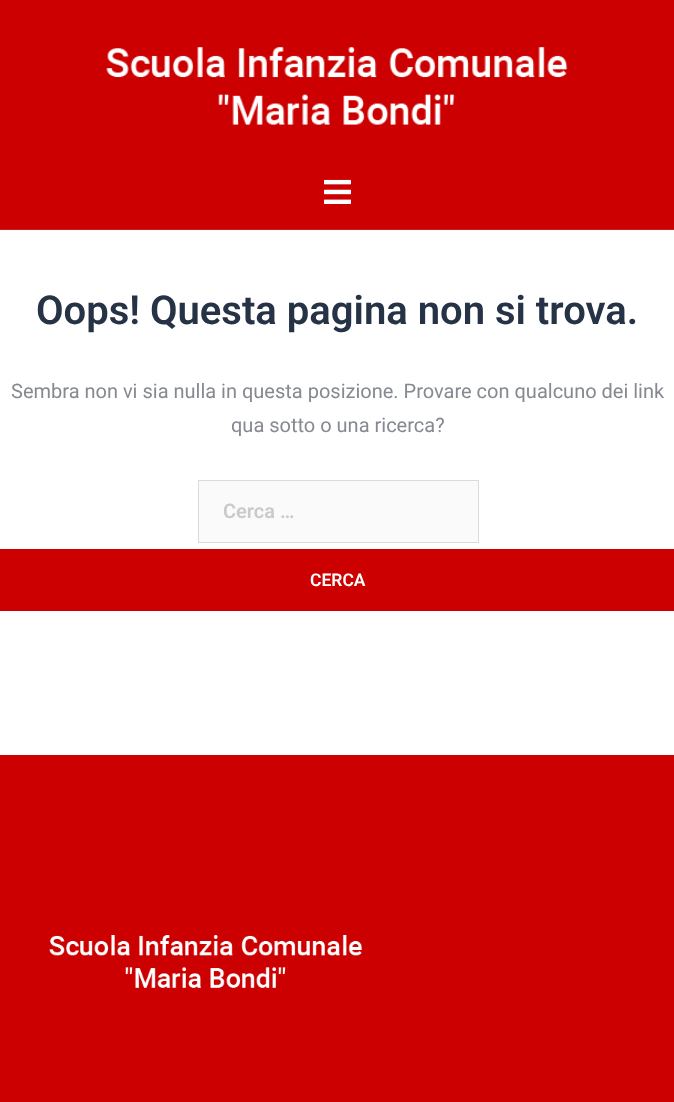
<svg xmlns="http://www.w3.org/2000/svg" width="674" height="1102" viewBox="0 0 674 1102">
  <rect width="100%" height="100%" fill="rgb(255,255,255)"/>
  <rect x="0" y="0" width="674" height="229" fill="rgb(204,0,0)"/>
  <rect x="0" y="229" width="674" height="1" fill="rgb(209,26,26)"/>
  <image x="106" y="47" width="462" height="78" href="pic1.png"/>
  <image x="324" y="179" width="27" height="25" href="pic2.png"/>
  <text x="36" y="324" font-family="Roboto" font-size="40" font-weight="600" fill="rgb(38,50,70)">Oops! Questa pagina non si trova.</text>
  <g font-family="Roboto" font-size="20" fill="rgb(134,137,144)">
    <text x="11" y="398">Sembra non vi sia nulla in questa posizione. Provare con qualcuno dei link</text>
    <text x="231" y="432">qua sotto o una ricerca?</text>
  </g>
  <rect x="198.5" y="480.5" width="280" height="62" fill="rgb(250,250,250)" stroke="rgb(219,219,219)"/>
  <text x="223" y="518" font-family="Roboto" font-size="20" font-weight="600" fill="rgb(202,202,202)">Cerca …</text>
  <rect x="0" y="549" width="674" height="62" fill="rgb(204,0,0)"/>
  <text x="310" y="586" font-family="Roboto" font-size="17.5" font-weight="600" fill="rgb(255,255,255)">CERCA</text>
  <rect x="0" y="755" width="674" height="347" fill="rgb(204,0,0)"/>
  <image x="49" y="935" width="314" height="53" href="pic3.png"/>
</svg>
